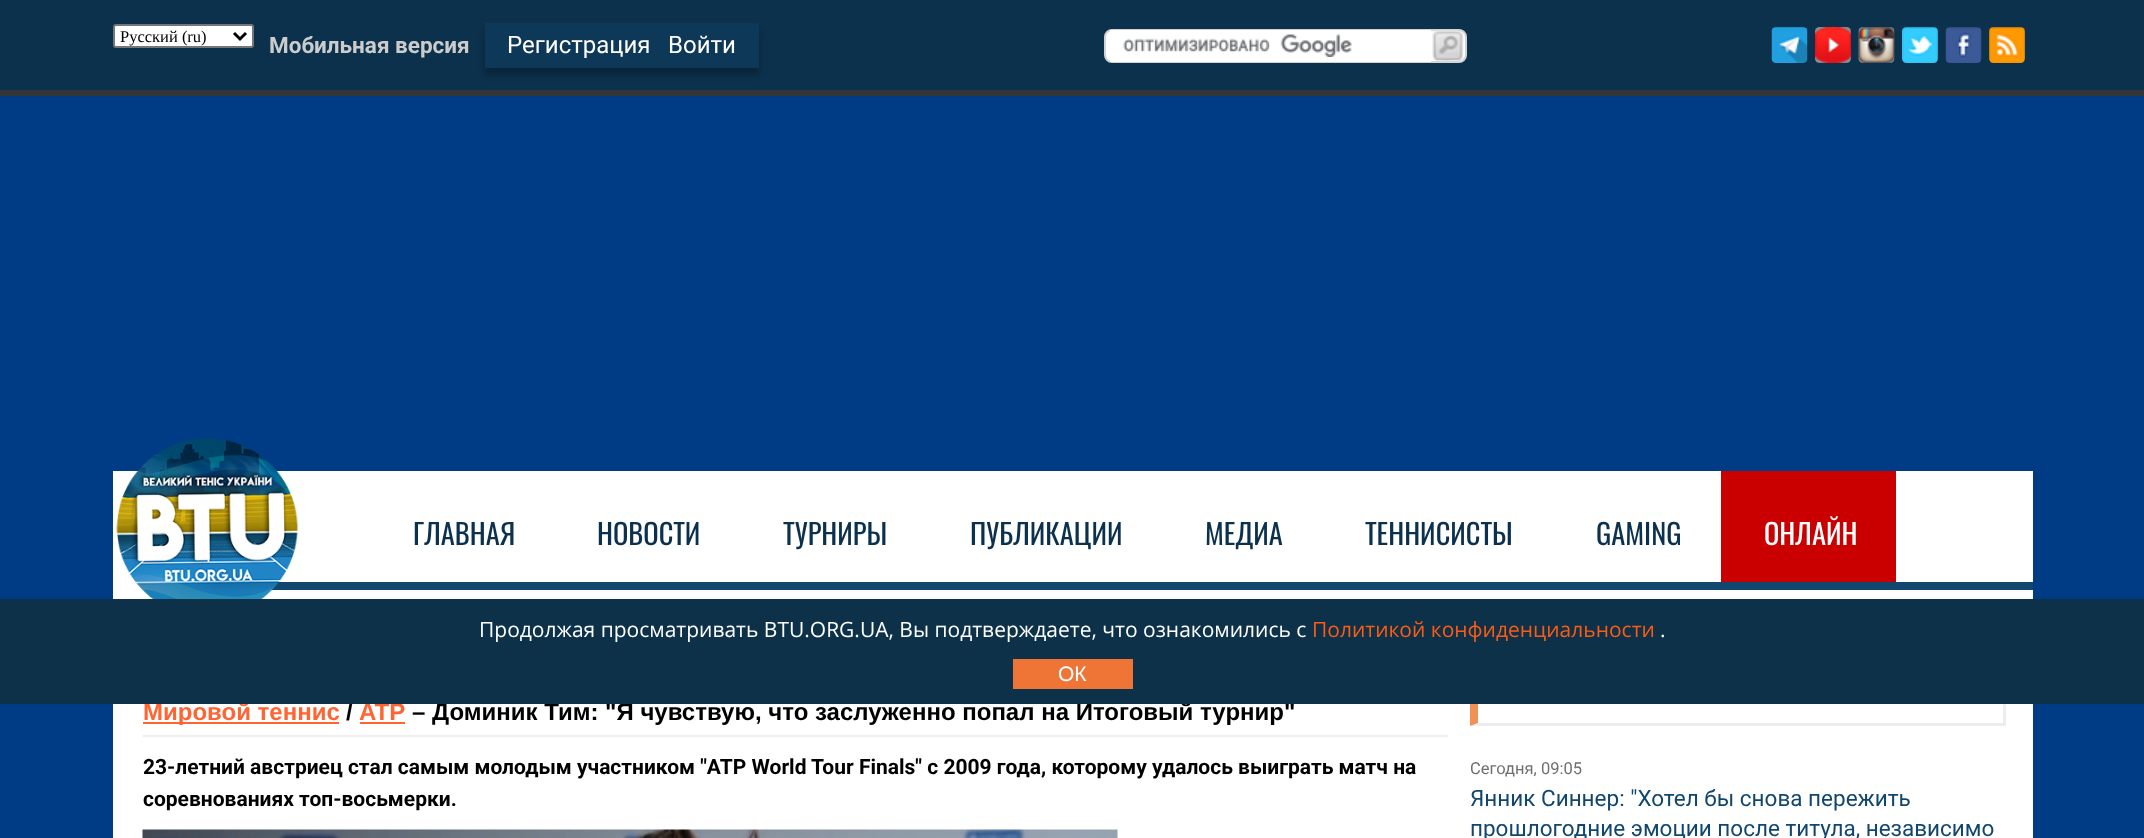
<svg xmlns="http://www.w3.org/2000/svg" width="2144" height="838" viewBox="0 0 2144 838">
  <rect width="100%" height="100%" fill="rgb(0,60,133)"/>
  <rect x="0" y="0" width="2144" height="90" fill="rgb(12,49,76)"/>
  <rect x="0" y="90" width="2144" height="6" fill="rgb(50,54,57)"/>
  <rect x="114" y="25" width="139" height="22" rx="2" fill="rgb(255,255,255)" stroke="rgb(118,118,118)" stroke-width="2"/>
  <path d="M234 33L240 39L246 33" fill="none" stroke="rgb(0,0,0)" stroke-width="3"/>
  <text x="120" y="42" font-family="Liberation Serif" font-size="16.5" fill="rgb(0,0,0)">Русский (ru)</text>
  <text x="269" y="53" font-family="Roboto" font-size="22.5" font-weight="bold" fill="rgb(204,204,204)">Мобильная версия</text>
  <rect x="485" y="30" width="274" height="45" fill="rgba(0,0,0,0.25)" filter="blur(3px)"/>
  <rect x="485" y="23" width="274" height="45" fill="rgb(14,56,88)"/>
  <g font-family="Roboto" font-size="24" fill="rgb(255,255,255)">
    <text x="507" y="53">Регистрация</text>
    <text x="668" y="53">Войти</text>
  </g>
  <rect x="1105" y="30" width="361" height="32" rx="7" fill="rgb(255,255,255)" stroke="rgb(211,211,211)" stroke-width="2"/>
  <rect x="1110" y="30" width="321" height="32" fill="rgb(255,255,255)"/>
  <image x="1123" y="34" width="229" height="23" href="pic1.png"/>
  <image x="1432" y="30" width="32" height="32" href="pic2.png"/>
  <image x="1771" y="27" width="37" height="36" href="pic3.png"/>
  <image x="1814" y="27" width="37" height="36" href="pic4.png"/>
  <image x="1815" y="27" width="36" height="36" href="pic5.png"/>
  <image x="1858" y="27" width="37" height="36" href="pic6.png"/>
  <image x="1858" y="27" width="37" height="36" href="pic7.png"/>
  <image x="1901" y="27" width="37" height="36" href="pic8.png"/>
  <image x="1945" y="27" width="37" height="36" href="pic9.png"/>
  <image x="1989" y="27" width="36" height="36" href="pic10.png"/>
  <rect x="113" y="471" width="1920" height="367" fill="rgb(255,255,255)"/>
  <rect x="271" y="582" width="1762" height="8" fill="rgb(17,71,110)"/>
  <image x="116" y="438" width="183" height="161" href="pic11.png"/>
  <g font-family="Oswald" font-size="28.5" fill="rgb(12,49,78)">
    <text x="413" y="545">ГЛАВНАЯ</text>
    <text x="597" y="545">НОВОСТИ</text>
    <text x="783" y="545">ТУРНИРЫ</text>
    <text x="970" y="545">ПУБЛИКАЦИИ</text>
    <text x="1205" y="545">МЕДИА</text>
    <text x="1365" y="545">ТЕННИСИСТЫ</text>
    <text x="1596" y="545">GAMING</text>
  </g>
  <rect x="1721" y="471" width="175" height="111" fill="rgb(202,0,0)"/>
  <text x="1764" y="545" font-family="Oswald" font-size="28.5" fill="rgb(255,255,255)">ОНЛАЙН</text>
  <rect x="143" y="735" width="1305" height="2" fill="rgb(238,238,238)"/>
  <rect x="143" y="722" width="196" height="2" fill="rgb(255,100,50)"/>
  <text x="143" y="720" font-family="Liberation Sans" font-size="24" font-weight="bold" fill="rgb(255,100,50)">Мировой теннис</text>
  <text x="346" y="720" font-family="Liberation Sans" font-size="24" font-weight="bold" fill="rgb(0,0,0)">/</text>
  <text x="359" y="720" font-family="Liberation Sans" font-size="24" font-weight="bold" fill="rgb(255,100,50)">ATP</text>
  <rect x="360" y="722" width="45" height="2" fill="rgb(255,100,50)"/>
  <text x="412" y="720" font-family="Liberation Sans" font-size="24" font-weight="bold" fill="rgb(0,0,0)">– Доминик Тим: "Я чувствую, что заслуженно попал на Итоговый турнир"</text>
  <g font-family="Roboto" font-size="21" font-weight="bold" fill="rgb(0,0,0)">
    <text>
      <tspan x="143" y="774">23-летний австриец стал самым молодым участником "ATP World Tour Finals" с 2009 года, которому удалось выиграть матч на</tspan>
      <tspan x="143" y="806">соревнованиях топ-восьмерки.</tspan>
    </text>
  </g>
  <image x="142" y="829" width="976" height="9" href="pic12.png"/>
  <rect x="2003" y="704" width="3" height="22" fill="rgb(237,237,237)"/>
  <path d="M2006 726H1470L1478 723H2002Z" fill="rgb(237,237,237)"/>
  <path d="M1470 726V638L1478 640V723Z" fill="rgb(240,145,86)"/>
  <text x="1470" y="774" font-family="Roboto" font-size="16.5" fill="rgb(112,112,112)">Сегодня, 09:05</text>
  <g font-family="Roboto" font-size="22.5" fill="rgb(17,71,110)">
    <text>
      <tspan x="1470" y="806">Янник Синнер: "Хотел бы снова пережить</tspan>
      <tspan x="1470" y="836">прошлогодние эмоции после титула, независимо</tspan>
    </text>
  </g>
  <rect x="0" y="599" width="2144" height="105" fill="rgb(12,49,73)"/>
  <text x="479" y="637" font-family="Open Sans" font-size="21" fill="rgb(255,255,255)">Продолжая просматривать BTU.ORG.UA, Вы подтверждаете, что ознакомились с</text>
  <text x="1312" y="637" font-family="Open Sans" font-size="21" fill="rgb(251,92,20)">Политикой конфиденциальности</text>
  <text x="1660" y="637" font-family="Open Sans" font-size="21" fill="rgb(255,255,255)">.</text>
  <rect x="1013" y="659" width="120" height="30" fill="rgb(238,117,54)"/>
  <text x="1058" y="681" font-family="Liberation Sans" font-size="21" fill="rgb(255,255,255)">ОК</text>
</svg>
